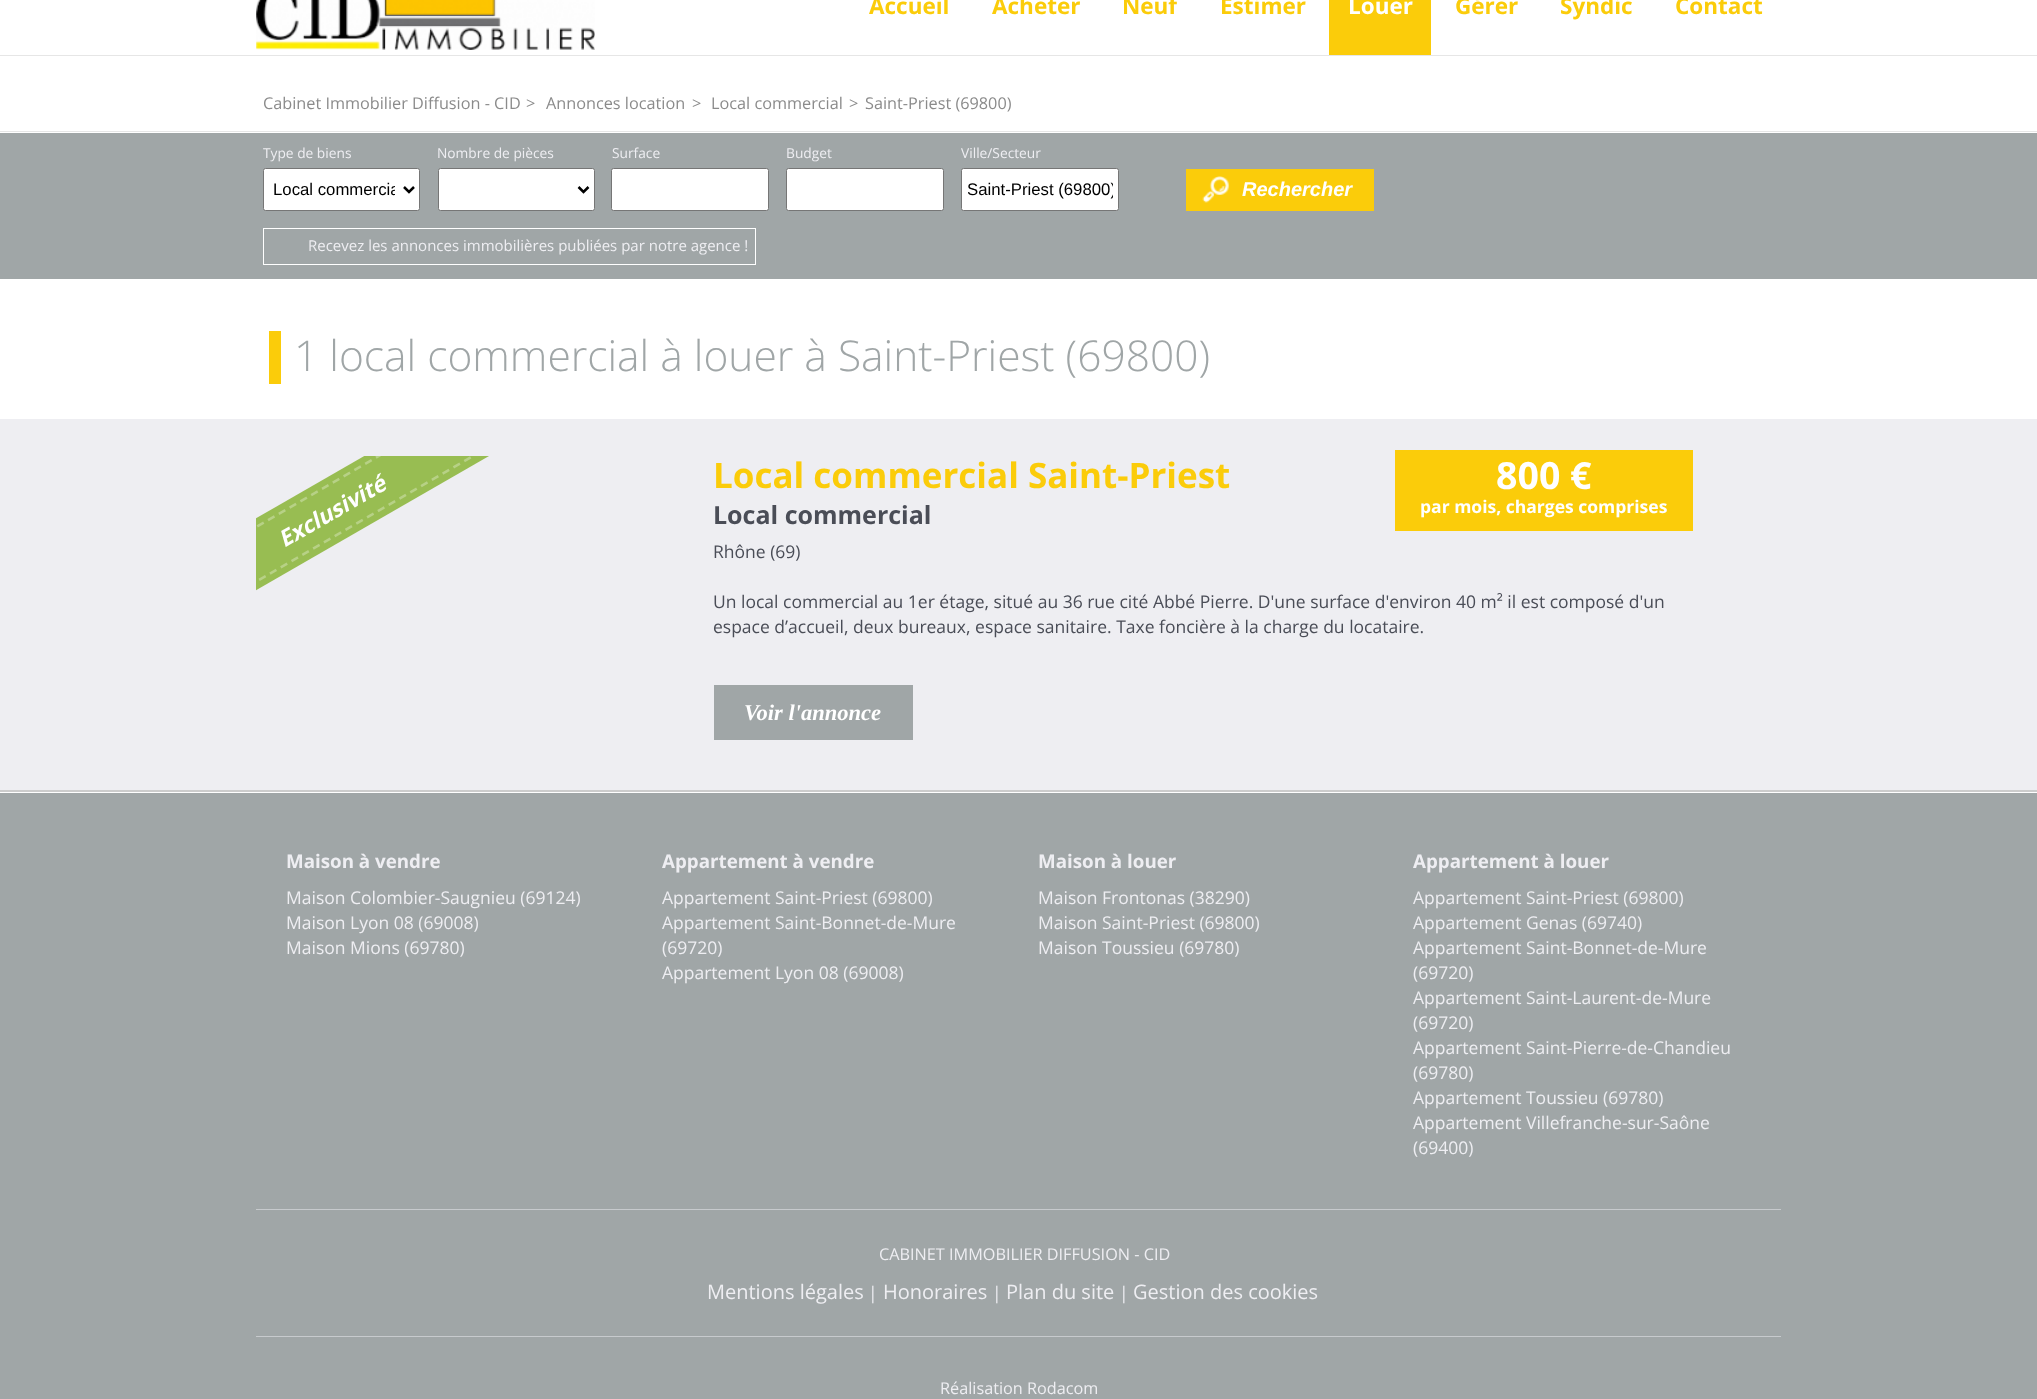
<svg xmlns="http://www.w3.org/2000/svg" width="2037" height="1399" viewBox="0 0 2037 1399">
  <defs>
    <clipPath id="clip1"><rect x="273" y="179" width="122" height="21"/></clipPath>
    <clipPath id="clip2"><rect x="968" y="180" width="145" height="19"/></clipPath>
    <clipPath id="clip3"><rect x="256" y="456" width="420" height="288"/></clipPath>
  </defs>
  <rect width="100%" height="100%" fill="rgb(255,255,255)"/>
  <rect x="0" y="55" width="2037" height="1" fill="rgb(230,230,230)"/>
  <image x="256" y="0" width="339" height="50" href="pic1.png"/>
  <g font-family="Open Sans" font-size="22.5" font-weight="bold" fill="rgb(251,204,10)">
    <text x="869" y="14">Accueil</text>
    <text x="992" y="14">Acheter</text>
    <text x="1122" y="14">Neuf</text>
    <text x="1220" y="14">Estimer</text>
  </g>
  <rect x="1329" y="0" width="102" height="55" fill="rgb(251,204,10)"/>
  <text x="1348" y="14" font-family="Open Sans" font-size="22.5" font-weight="bold" fill="rgb(255,255,255)">Louer</text>
  <g font-family="Open Sans" font-size="22.5" font-weight="bold" fill="rgb(251,204,10)">
    <text x="1455" y="14">Gérer</text>
    <text x="1560" y="14">Syndic</text>
    <text x="1675" y="14">Contact</text>
  </g>
  <rect x="0" y="131" width="2037" height="1" fill="rgb(230,230,230)"/>
  <g font-family="Open Sans" font-size="16.25" fill="rgb(139,139,139)">
    <text x="263" y="109">Cabinet Immobilier Diffusion - CID</text>
    <text x="526" y="109">&gt;</text>
    <text x="546" y="109">Annonces location</text>
    <text x="692" y="109">&gt;</text>
    <text x="711" y="109">Local commercial</text>
    <text x="849" y="109">&gt;</text>
    <text x="865" y="109">Saint-Priest (69800)</text>
  </g>
  <rect x="0" y="133" width="2037" height="146" fill="rgb(160,166,167)"/>
  <text x="263" y="158" font-family="Open Sans" font-size="13.75" fill="rgb(238,238,242)">Type de biens</text>
  <rect x="263.5" y="168.5" width="156" height="42" rx="2" fill="rgb(255,255,255)" stroke="rgb(118,118,118)"/>
  <path d="M404 187L409 192L414 187" fill="none" stroke="rgb(0,0,0)" stroke-width="2.5"/>
  <g clip-path="url(#clip1)">
    <text x="273" y="195" font-family="Liberation Sans" font-size="16.75" fill="rgb(0,0,0)">Local commercia</text>
  </g>
  <text x="437" y="158" font-family="Open Sans" font-size="13.75" fill="rgb(238,238,242)">Nombre de pièces</text>
  <rect x="438.5" y="168.5" width="156" height="42" rx="2" fill="rgb(255,255,255)" stroke="rgb(118,118,118)"/>
  <path d="M578.5 187L583.5 192L588.5 187" fill="none" stroke="rgb(0,0,0)" stroke-width="2.5"/>
  <text x="612" y="158" font-family="Open Sans" font-size="13.75" fill="rgb(238,238,242)">Surface</text>
  <rect x="611.5" y="168.5" width="157" height="42" rx="2" fill="rgb(255,255,255)" stroke="rgb(118,118,118)"/>
  <text x="786" y="158" font-family="Open Sans" font-size="13.75" fill="rgb(238,238,242)">Budget</text>
  <rect x="786.5" y="168.5" width="157" height="42" rx="2" fill="rgb(255,255,255)" stroke="rgb(118,118,118)"/>
  <text x="961" y="158" font-family="Open Sans" font-size="13.75" fill="rgb(238,238,242)">Ville/Secteur</text>
  <rect x="961.5" y="168.5" width="157" height="42" rx="2" fill="rgb(255,255,255)" stroke="rgb(118,118,118)"/>
  <g clip-path="url(#clip2)">
    <text x="967" y="195" font-family="Liberation Sans" font-size="16.75" fill="rgb(0,0,0)">Saint-Priest (69800)</text>
  </g>
  <rect x="1186" y="169" width="188" height="42" fill="rgb(251,204,10)"/>
  <image x="1202" y="176" width="28" height="27" href="pic2.png"/>
  <text x="1242" y="196" font-family="Liberation Sans" font-size="20" font-weight="bold" font-style="italic" fill="rgb(255,255,255)">Rechercher</text>
  <rect x="263.5" y="228.5" width="492" height="36" fill="none" stroke="rgb(255,255,255)"/>
  <text x="308" y="251" font-family="Open Sans" font-size="15" fill="rgb(238,238,242)">Recevez les annonces immobilières publiées par notre agence !</text>
  <rect x="269" y="331" width="12" height="53" fill="rgb(251,204,10)"/>
  <text x="294" y="371" font-family="Open Sans" font-size="42.5" font-weight="300" fill="rgb(160,166,167)">1 local commercial à louer à Saint-Priest (69800)</text>
  <rect x="0" y="419" width="2037" height="371" fill="rgb(238,238,242)"/>
  <g clip-path="url(#clip3)">
    <path d="M135 588L498 379L529 433L166 642Z" fill="rgb(152,189,82)"/>
  </g>
  <text x="284" y="548" transform="rotate(-30 284 548)" font-family="Noto Sans" font-size="22.5" font-weight="bold" font-style="italic" fill="rgb(255,255,255)">E</text>
  <text x="295" y="542" transform="rotate(-30 295 542)" font-family="Open Sans" font-size="22.5" font-weight="bold" font-style="italic" fill="rgb(255,255,255)">xclusivité</text>
  <g clip-path="url(#clip3)">
    <path d="M138.5 595L501.5 385" fill="none" stroke="rgb(183,209,134)" stroke-width="2.5" stroke-dasharray="7.5 4.97"/>
    <path d="M162 636L525 426" fill="none" stroke="rgb(183,209,134)" stroke-width="2.5" stroke-dasharray="7.5 4.97"/>
  </g>
  <text x="713" y="488" font-family="Open Sans" font-size="35" font-weight="bold" fill="rgb(251,204,10)">Local commercial Saint-Priest</text>
  <rect x="1395" y="450" width="298" height="81" fill="rgb(251,204,10)"/>
  <text x="1496" y="489" font-family="Open Sans" font-size="37.5" font-weight="bold" fill="rgb(255,255,255)">800 €</text>
  <text x="1420" y="513" font-family="Open Sans" font-size="17.5" font-weight="bold" fill="rgb(255,255,255)">par mois, charges comprises</text>
  <text x="713" y="524" font-family="Open Sans" font-size="25" font-weight="bold" fill="rgb(74,77,87)">Local commercial</text>
  <g font-family="Open Sans" font-size="17.5" fill="rgb(74,77,87)">
    <text x="713" y="558">Rhône (69)</text>
    <text>
      <tspan x="713" y="608">Un local commercial au 1er étage, situé au 36 rue cité Abbé Pierre. D'une surface d'environ 40 m² il est composé d'un</tspan>
      <tspan x="713" y="633">espace d’accueil, deux bureaux, espace sanitaire. Taxe foncière à la charge du locataire.</tspan>
    </text>
  </g>
  <rect x="714" y="685" width="199" height="55" fill="rgb(160,166,167)"/>
  <text x="744" y="720" font-family="Liberation Serif" font-size="22.5" font-weight="bold" font-style="italic" fill="rgb(255,255,255)">Voir l'annonce</text>
  <rect x="0" y="790" width="2037" height="2" fill="rgb(204,204,204)"/>
  <rect x="0" y="793" width="2037" height="606" fill="rgb(160,166,167)"/>
  <text x="286" y="868" font-family="Open Sans" font-size="18.75" font-weight="bold" fill="rgb(238,238,242)">Maison à vendre</text>
  <g font-family="Open Sans" font-size="17.5" fill="rgb(238,238,242)">
    <text>
      <tspan x="286" y="904">Maison Colombier-Saugnieu (69124)</tspan>
      <tspan x="286" y="929">Maison Lyon 08 (69008)</tspan>
      <tspan x="286" y="954">Maison Mions (69780)</tspan>
    </text>
  </g>
  <text x="662" y="868" font-family="Open Sans" font-size="18.75" font-weight="bold" fill="rgb(238,238,242)">Appartement à vendre</text>
  <g font-family="Open Sans" font-size="17.5" fill="rgb(238,238,242)">
    <text>
      <tspan x="662" y="904">Appartement Saint-Priest (69800)</tspan>
      <tspan x="662" y="929">Appartement Saint-Bonnet-de-Mure</tspan>
      <tspan x="662" y="954">(69720)</tspan>
      <tspan x="662" y="979">Appartement Lyon 08 (69008)</tspan>
    </text>
  </g>
  <text x="1038" y="868" font-family="Open Sans" font-size="18.75" font-weight="bold" fill="rgb(238,238,242)">Maison à louer</text>
  <g font-family="Open Sans" font-size="17.5" fill="rgb(238,238,242)">
    <text>
      <tspan x="1038" y="904">Maison Frontonas (38290)</tspan>
      <tspan x="1038" y="929">Maison Saint-Priest (69800)</tspan>
      <tspan x="1038" y="954">Maison Toussieu (69780)</tspan>
    </text>
  </g>
  <text x="1413" y="868" font-family="Open Sans" font-size="18.75" font-weight="bold" fill="rgb(238,238,242)">Appartement à louer</text>
  <g font-family="Open Sans" font-size="17.5" fill="rgb(238,238,242)">
    <text>
      <tspan x="1413" y="904">Appartement Saint-Priest (69800)</tspan>
      <tspan x="1413" y="929">Appartement Genas (69740)</tspan>
      <tspan x="1413" y="954">Appartement Saint-Bonnet-de-Mure</tspan>
      <tspan x="1413" y="979">(69720)</tspan>
      <tspan x="1413" y="1004">Appartement Saint-Laurent-de-Mure</tspan>
      <tspan x="1413" y="1029">(69720)</tspan>
      <tspan x="1413" y="1054">Appartement Saint-Pierre-de-Chandieu</tspan>
      <tspan x="1413" y="1079">(69780)</tspan>
      <tspan x="1413" y="1104">Appartement Toussieu (69780)</tspan>
      <tspan x="1413" y="1129">Appartement Villefranche-sur-Saône</tspan>
      <tspan x="1413" y="1154">(69400)</tspan>
    </text>
  </g>
  <rect x="256" y="1209" width="1525" height="1" fill="rgb(199,202,205)"/>
  <rect x="256" y="1336" width="1525" height="1" fill="rgb(199,202,205)"/>
  <text x="879" y="1260" font-family="Open Sans" font-size="16.25" fill="rgb(238,238,242)">CABINET IMMOBILIER DIFFUSION - CID</text>
  <text x="707" y="1299" font-family="Open Sans" font-size="20" fill="rgb(238,238,242)">Mentions légales</text>
  <text x="868" y="1299" font-family="Open Sans" font-size="17.5" fill="rgb(238,238,242)">|</text>
  <text x="883" y="1299" font-family="Open Sans" font-size="20" fill="rgb(238,238,242)">Honoraires</text>
  <text x="992" y="1299" font-family="Open Sans" font-size="17.5" fill="rgb(238,238,242)">|</text>
  <text x="1006" y="1299" font-family="Open Sans" font-size="20" fill="rgb(238,238,242)">Plan du site</text>
  <text x="1119" y="1299" font-family="Open Sans" font-size="17.5" fill="rgb(238,238,242)">|</text>
  <text x="1133" y="1299" font-family="Open Sans" font-size="20" fill="rgb(238,238,242)">Gestion des cookies</text>
  <text x="940" y="1394" font-family="Open Sans" font-size="16.25" fill="rgb(238,238,242)">Réalisation Rodacom</text>
</svg>
